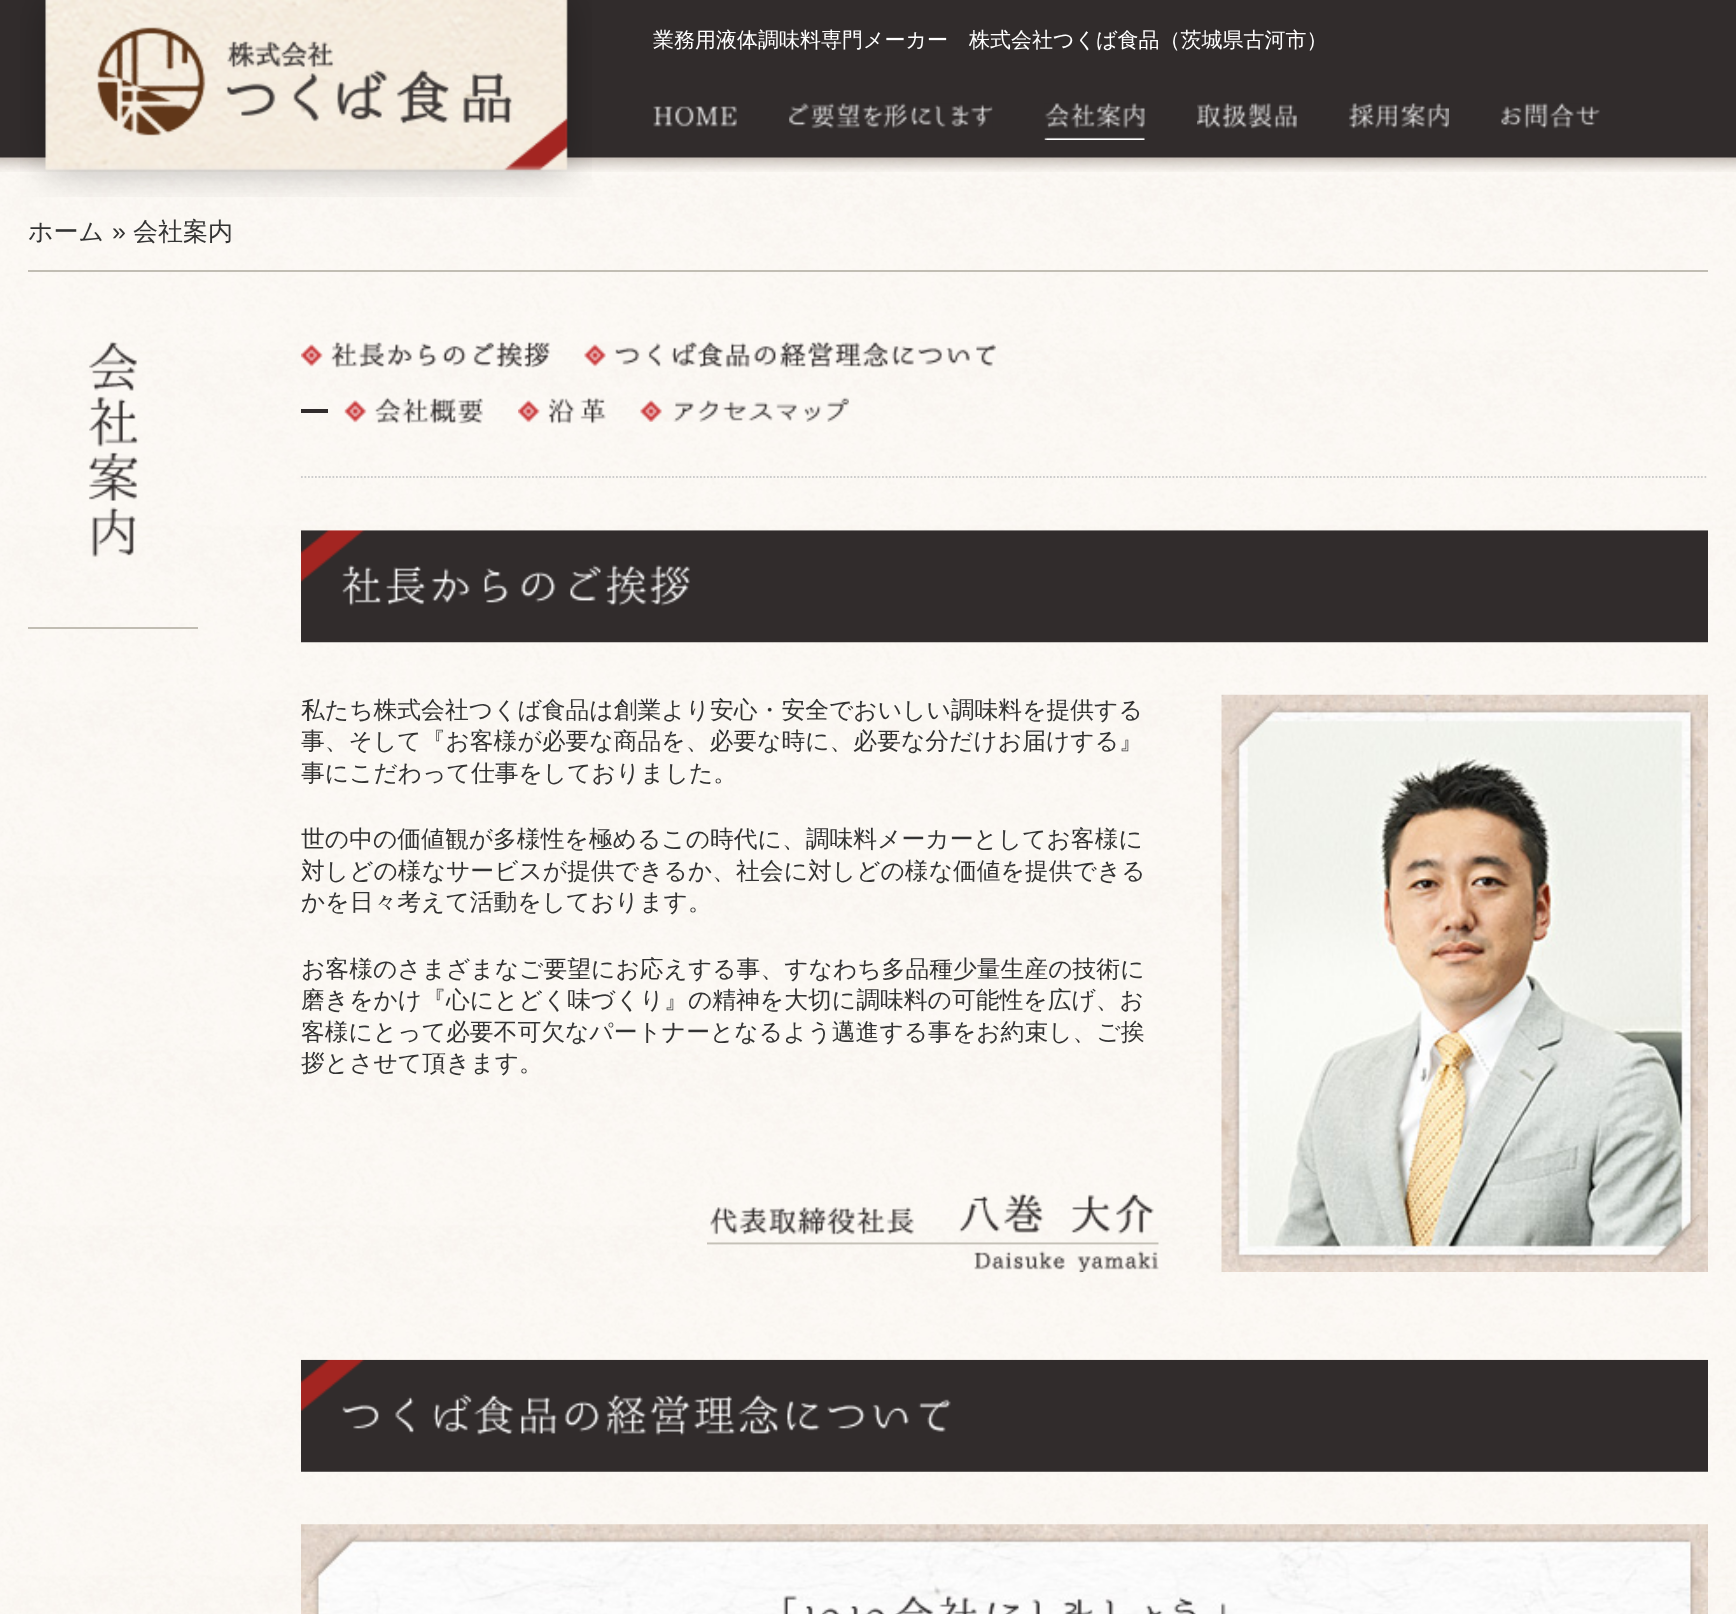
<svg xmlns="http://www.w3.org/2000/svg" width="1736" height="1614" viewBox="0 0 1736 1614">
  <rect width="100%" height="100%" fill="rgb(255,255,255)"/>
  <image x="0" y="157" width="1736" height="1457" href="pic1.png"/>
  <image x="0" y="0" width="1736" height="172" href="pic2.png"/>
  <image x="20" y="0" width="572" height="197" href="pic3.png"/>
  <text x="653" y="47" font-family="WenQuanYi Zen Hei" font-size="21" font-weight="500" fill="rgb(255,255,255)">業務用液体調味料専門メーカー　株式会社つくば食品（茨城県古河市）</text>
  <image x="653" y="106" width="84" height="21" href="pic4.png"/>
  <image x="789" y="103" width="204" height="26" href="pic5.png"/>
  <image x="1044" y="103" width="101" height="37" href="pic6.png"/>
  <image x="1197" y="103" width="100" height="26" href="pic7.png"/>
  <image x="1349" y="103" width="100" height="26" href="pic8.png"/>
  <image x="1501" y="103" width="99" height="26" href="pic9.png"/>
  <rect x="28" y="270" width="1680" height="2" fill="rgb(193,189,179)"/>
  <text x="28" y="240" font-family="WenQuanYi Zen Hei" font-size="25" font-weight="500" fill="rgb(51,51,51)">ホーム</text>
  <text x="112" y="240" font-family="Liberation Sans" font-size="25" fill="rgb(51,51,51)">»</text>
  <text x="133" y="240" font-family="WenQuanYi Zen Hei" font-size="25" font-weight="500" fill="rgb(51,51,51)">会社案内</text>
  <rect x="28" y="627" width="170" height="2" fill="rgb(193,189,179)"/>
  <image x="89" y="341" width="50" height="216" href="pic10.png"/>
  <path d="M301 477H1708" fill="none" stroke="rgb(204,204,204)" stroke-width="1.8" stroke-dasharray="1.75 1.75"/>
  <image x="301" y="341" width="249" height="27" href="pic11.png"/>
  <image x="584" y="341" width="412" height="27" href="pic12.png"/>
  <rect x="301" y="409" width="27" height="4" fill="rgb(49,44,44)"/>
  <image x="344" y="397" width="139" height="27" href="pic13.png"/>
  <image x="518" y="397" width="88" height="27" href="pic14.png"/>
  <image x="640" y="397" width="209" height="25" href="pic15.png"/>
  <image x="301" y="530" width="1407" height="113" href="pic16.png"/>
  <g font-family="WenQuanYi Zen Hei" font-size="23.8" font-weight="500" fill="rgb(51,51,51)">
    <text>
      <tspan x="301" y="718">私たち株式会社つくば食品は創業より安心・安全でおいしい調味料を提供する</tspan>
      <tspan x="301" y="749">事、そして『お客様が必要な商品を、必要な時に、必要な分だけお届けする』</tspan>
      <tspan x="301" y="781">事にこだわって仕事をしておりました。</tspan>
    </text>
    <text>
      <tspan x="301" y="847">世の中の価値観が多様性を極めるこの時代に、調味料メーカーとしてお客様に</tspan>
      <tspan x="301" y="879">対しどの様なサービスが提供できるか、社会に対しどの様な価値を提供できる</tspan>
      <tspan x="301" y="910">かを日々考えて活動をしております。</tspan>
    </text>
    <text>
      <tspan x="301" y="977">お客様のさまざまなご要望にお応えする事、すなわち多品種少量生産の技術に</tspan>
      <tspan x="301" y="1008">磨きをかけ『心にとどく味づくり』の精神を大切に調味料の可能性を広げ、お</tspan>
      <tspan x="301" y="1040">客様にとって必要不可欠なパートナーとなるよう邁進する事をお約束し、ご挨</tspan>
      <tspan x="301" y="1071">拶とさせて頂きます。</tspan>
    </text>
  </g>
  <image x="707" y="1193" width="452" height="80" href="pic17.png"/>
  <image x="1221" y="694" width="487" height="578" href="pic18.png"/>
  <image x="301" y="1359" width="1407" height="113" href="pic19.png"/>
  <image x="301" y="1524" width="1407" height="90" href="pic20.png"/>
</svg>
